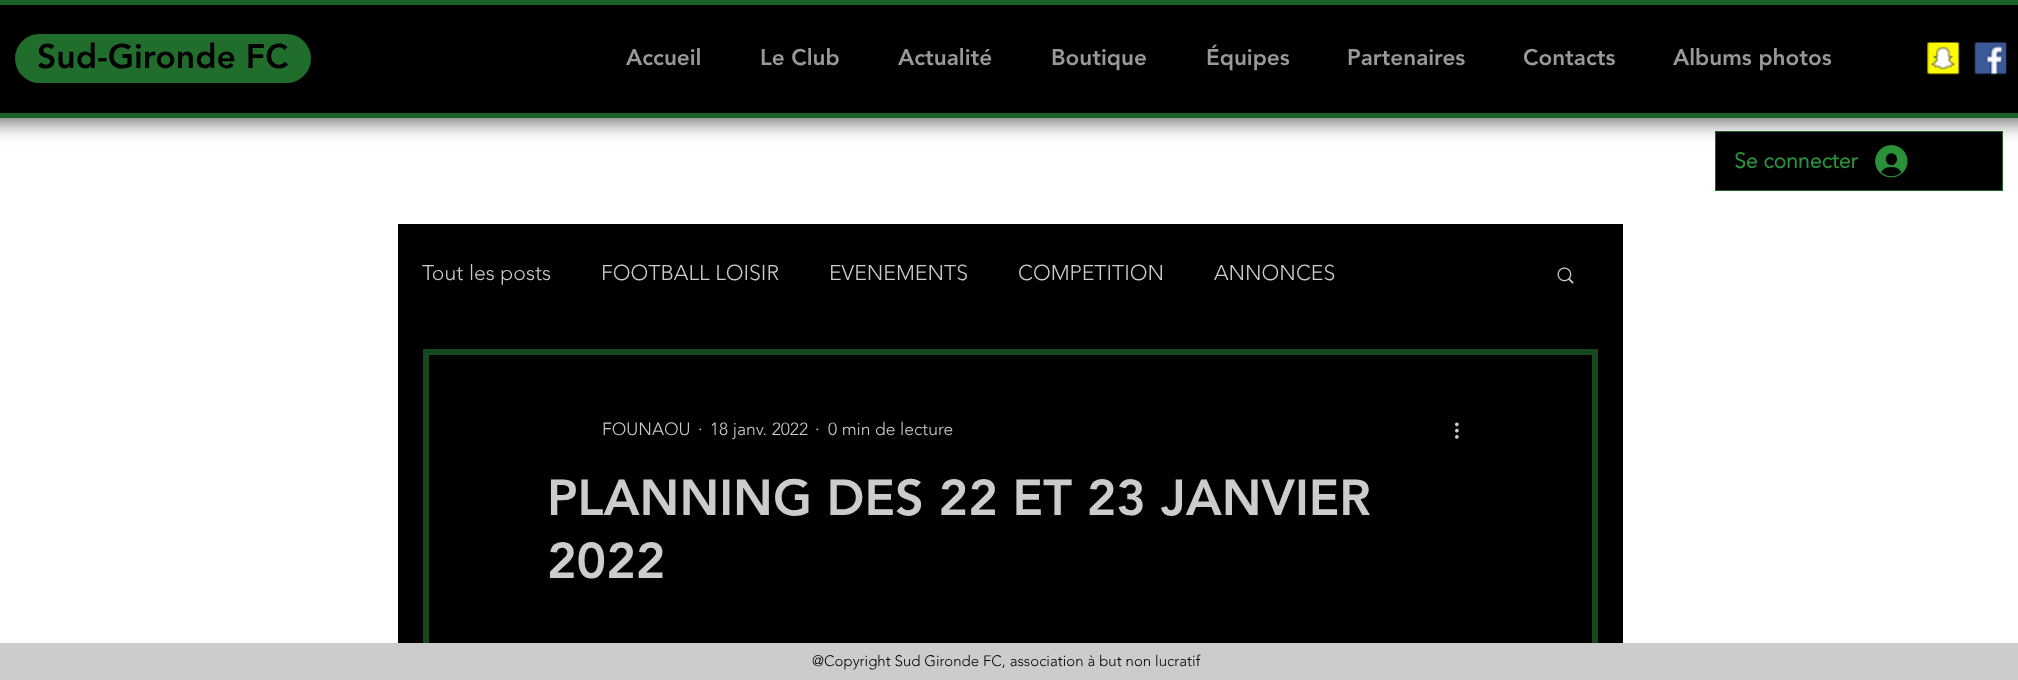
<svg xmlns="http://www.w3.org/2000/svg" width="2018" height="680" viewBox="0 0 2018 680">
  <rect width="100%" height="100%" fill="rgb(255,255,255)"/>
  <rect x="-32" y="-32" width="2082" height="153" fill="rgba(0,0,0,0.65)" filter="blur(10.5px)"/>
  <rect x="0" y="5" width="2018" height="108" fill="rgb(0,0,0)"/>
  <rect x="0" y="0" width="2018" height="5" fill="rgb(28,97,39)"/>
  <rect x="0" y="113" width="2018" height="5" fill="rgb(28,97,39)"/>
  <rect x="15" y="34" width="296" height="49" rx="24.5" fill="rgb(32,109,44)"/>
  <text x="37" y="68" font-family="'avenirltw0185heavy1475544'" font-size="33.75" font-weight="900" fill="rgb(0,0,0)">Sud-Gironde FC</text>
  <g font-family="'avenirltw0185heavy1475544'" font-size="22.5" font-weight="900" fill="rgb(153,153,153)">
    <text x="626" y="65">Accueil</text>
    <text x="760" y="65">Le Club</text>
    <text x="898" y="65">Actualité</text>
    <text x="1051" y="65">Boutique</text>
    <text x="1206" y="65">Équipes</text>
    <text x="1347" y="65">Partenaires</text>
    <text x="1523" y="65">Contacts</text>
    <text x="1673" y="65">Albums photos</text>
  </g>
  <image x="1927" y="42" width="33" height="33" href="pic1.png"/>
  <image x="1974" y="42" width="33" height="33" href="pic2.png"/>
  <rect x="1715.5" y="131.5" width="287" height="59" fill="rgb(0,0,0)" stroke="rgb(28,97,39)"/>
  <text x="1734" y="168" font-family="'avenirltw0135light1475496'" font-size="21.25" font-weight="bold" fill="rgb(42,145,58)">Se connecter</text>
  <image x="1875" y="145" width="33" height="33" href="pic3.png"/>
  <rect x="398" y="224" width="1225" height="419" fill="rgb(0,0,0)"/>
  <g font-family="'avenirltw0135light1475496'" font-size="21.25" font-weight="300" fill="rgb(204,204,204)">
    <text x="422" y="280">Tout les posts</text>
    <text x="601" y="280">FOOTBALL LOISIR</text>
    <text x="829" y="280">EVENEMENTS</text>
    <text x="1018" y="280">COMPETITION</text>
    <text x="1214" y="280">ANNONCES</text>
  </g>
  <image x="1557" y="267" width="17" height="17" href="pic4.png"/>
  <rect x="426" y="352" width="1169" height="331" fill="none" stroke="rgb(21,73,29)" stroke-width="6"/>
  <g font-family="'avenirltw0135light1475496'" font-size="17.5" font-weight="300" fill="rgb(204,204,204)">
    <text x="602" y="435">FOUNAOU</text>
    <text x="698" y="435">·</text>
    <text x="710" y="435">18 janv. 2022</text>
    <text x="815" y="435">·</text>
    <text x="828" y="435">0 min de lecture</text>
  </g>
  <image x="1455" y="422" width="4" height="17" href="pic5.png"/>
  <g font-family="'avenirltw0185heavy1475544'" font-size="50" font-weight="900" fill="rgb(204,204,204)">
    <text>
      <tspan x="547" y="515">PLANNING DES 22 ET 23 JANVIER</tspan>
      <tspan x="547" y="578">2022</tspan>
    </text>
  </g>
  <rect x="0" y="643" width="2018" height="37" fill="rgb(204,204,204)"/>
  <text x="812" y="666" font-family="'avenirltw0135light1475496'" font-size="15" font-weight="300" fill="rgb(0,0,0)">@Copyright Sud Gironde FC, association à but non lucratif</text>
</svg>
